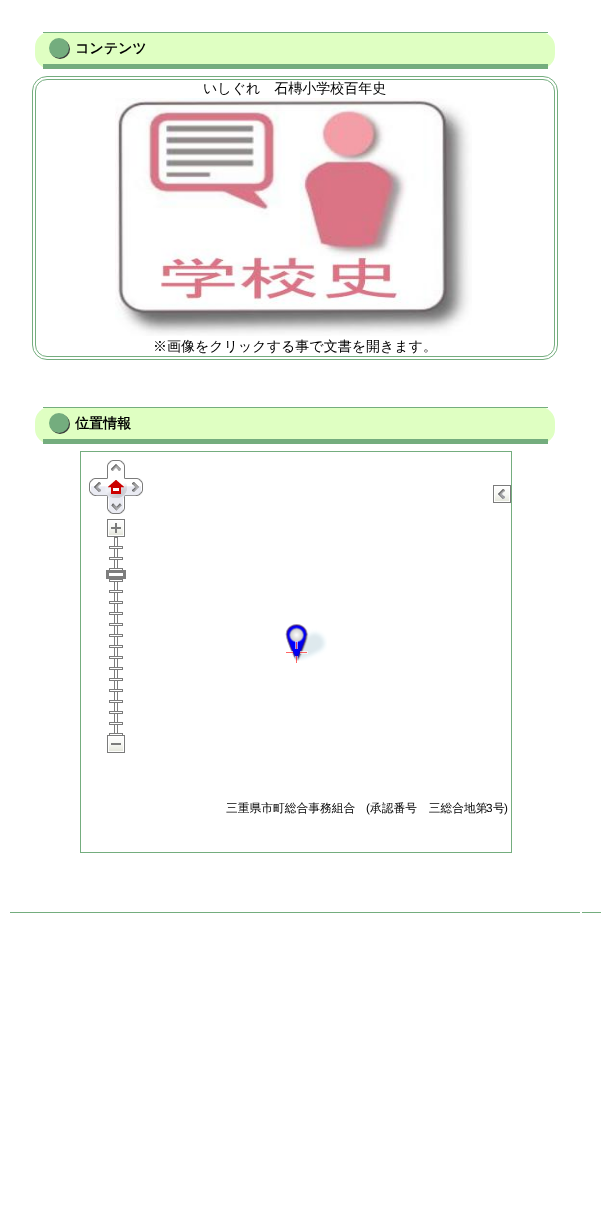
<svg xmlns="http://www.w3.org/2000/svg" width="601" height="1211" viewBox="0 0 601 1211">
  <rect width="100%" height="100%" fill="rgb(255,255,255)"/>
  <rect x="10" y="912" width="570" height="1" fill="rgb(116,173,126)"/>
  <rect x="35" y="32" width="520" height="37" rx="15" fill="rgb(223,255,194)"/>
  <rect x="43" y="32" width="505" height="1" fill="rgb(116,173,126)"/>
  <rect x="43" y="64" width="505" height="5" fill="rgb(116,173,126)"/>
  <rect x="50" y="39" width="20" height="20" rx="10" fill="rgb(58,58,58)" filter="blur(0.5px)"/>
  <circle cx="59" cy="48" r="10" fill="rgb(116,173,126)"/>
  <text x="75" y="53" font-family="WenQuanYi Zen Hei" font-size="14" font-weight="bold" fill="rgb(0,0,0)">コンテンツ</text>
  <rect x="32.5" y="76.5" width="525" height="283" rx="14.5" fill="none" stroke="rgb(116,173,126)"/>
  <rect x="35.5" y="79.5" width="519" height="277" rx="11.5" fill="none" stroke="rgb(116,173,126)"/>
  <text x="203" y="93" font-family="WenQuanYi Zen Hei" font-size="14" font-weight="500" fill="rgb(0,0,0)">いしぐれ　石槫小学校百年史</text>
  <image x="115" y="98" width="357" height="238" href="pic1.png"/>
  <text x="153" y="351" font-family="WenQuanYi Zen Hei" font-size="14" font-weight="500" fill="rgb(0,0,0)">※画像をクリックする事で文書を開きます。</text>
  <rect x="35" y="407" width="520" height="37" rx="15" fill="rgb(223,255,194)"/>
  <rect x="43" y="407" width="505" height="1" fill="rgb(116,173,126)"/>
  <rect x="43" y="439" width="505" height="5" fill="rgb(116,173,126)"/>
  <rect x="50" y="414" width="20" height="20" rx="10" fill="rgb(58,58,58)" filter="blur(0.5px)"/>
  <circle cx="59" cy="423" r="10" fill="rgb(116,173,126)"/>
  <text x="75" y="428" font-family="WenQuanYi Zen Hei" font-size="14" font-weight="bold" fill="rgb(0,0,0)">位置情報</text>
  <rect x="80.5" y="451.5" width="431" height="401" fill="none" stroke="rgb(116,173,126)"/>
  <image x="107" y="460" width="18" height="18" href="pic2.png"/>
  <image x="89" y="478" width="18" height="18" href="pic3.png"/>
  <image x="107" y="478" width="18" height="18" href="pic4.png"/>
  <image x="125" y="478" width="18" height="18" href="pic5.png"/>
  <image x="107" y="496" width="18" height="18" href="pic6.png"/>
  <image x="107" y="519" width="18" height="18" href="pic7.png"/>
  <image x="109" y="537" width="14" height="198" href="pic8.png"/>
  <image x="106" y="570" width="20" height="9" href="pic9.png"/>
  <image x="107" y="735" width="18" height="18" href="pic10.png"/>
  <image x="493" y="485" width="18" height="18" href="pic11.png"/>
  <image x="285" y="624" width="42" height="37" href="pic12.png"/>
  <rect x="295" y="641" width="3" height="8" fill="rgba(255,255,255,0.6)"/>
  <rect x="296" y="642" width="1" height="7" fill="rgba(255,0,0,0.6)"/>
  <rect x="285" y="651" width="8" height="3" fill="rgba(255,255,255,0.6)"/>
  <rect x="300" y="651" width="8" height="3" fill="rgba(255,255,255,0.6)"/>
  <rect x="286" y="652" width="7" height="1" fill="rgba(255,0,0,0.6)"/>
  <rect x="300" y="652" width="7" height="1" fill="rgba(255,0,0,0.6)"/>
  <rect x="295" y="656" width="3" height="8" fill="rgba(255,255,255,0.6)"/>
  <rect x="296" y="656" width="1" height="7" fill="rgba(255,0,0,0.6)"/>
  <text x="226" y="812" font-family="WenQuanYi Zen Hei" font-size="11.75" font-weight="500" fill="rgb(0,0,0)">三重県市町総合事務組合</text>
  <text x="366" y="812" font-family="Liberation Sans" font-size="11.75" fill="rgb(0,0,0)">(</text>
  <text x="370" y="812" font-family="WenQuanYi Zen Hei" font-size="11.75" font-weight="500" fill="rgb(0,0,0)">承認番号　三総合地第</text>
  <text x="486" y="812" font-family="Liberation Sans" font-size="11.75" fill="rgb(0,0,0)">3</text>
  <text x="493" y="812" font-family="WenQuanYi Zen Hei" font-size="11.75" font-weight="500" fill="rgb(0,0,0)">号</text>
  <text x="504" y="812" font-family="Liberation Sans" font-size="11.75" fill="rgb(0,0,0)">)</text>
  <rect x="582" y="912" width="19" height="1" fill="rgb(116,173,126)"/>
</svg>
